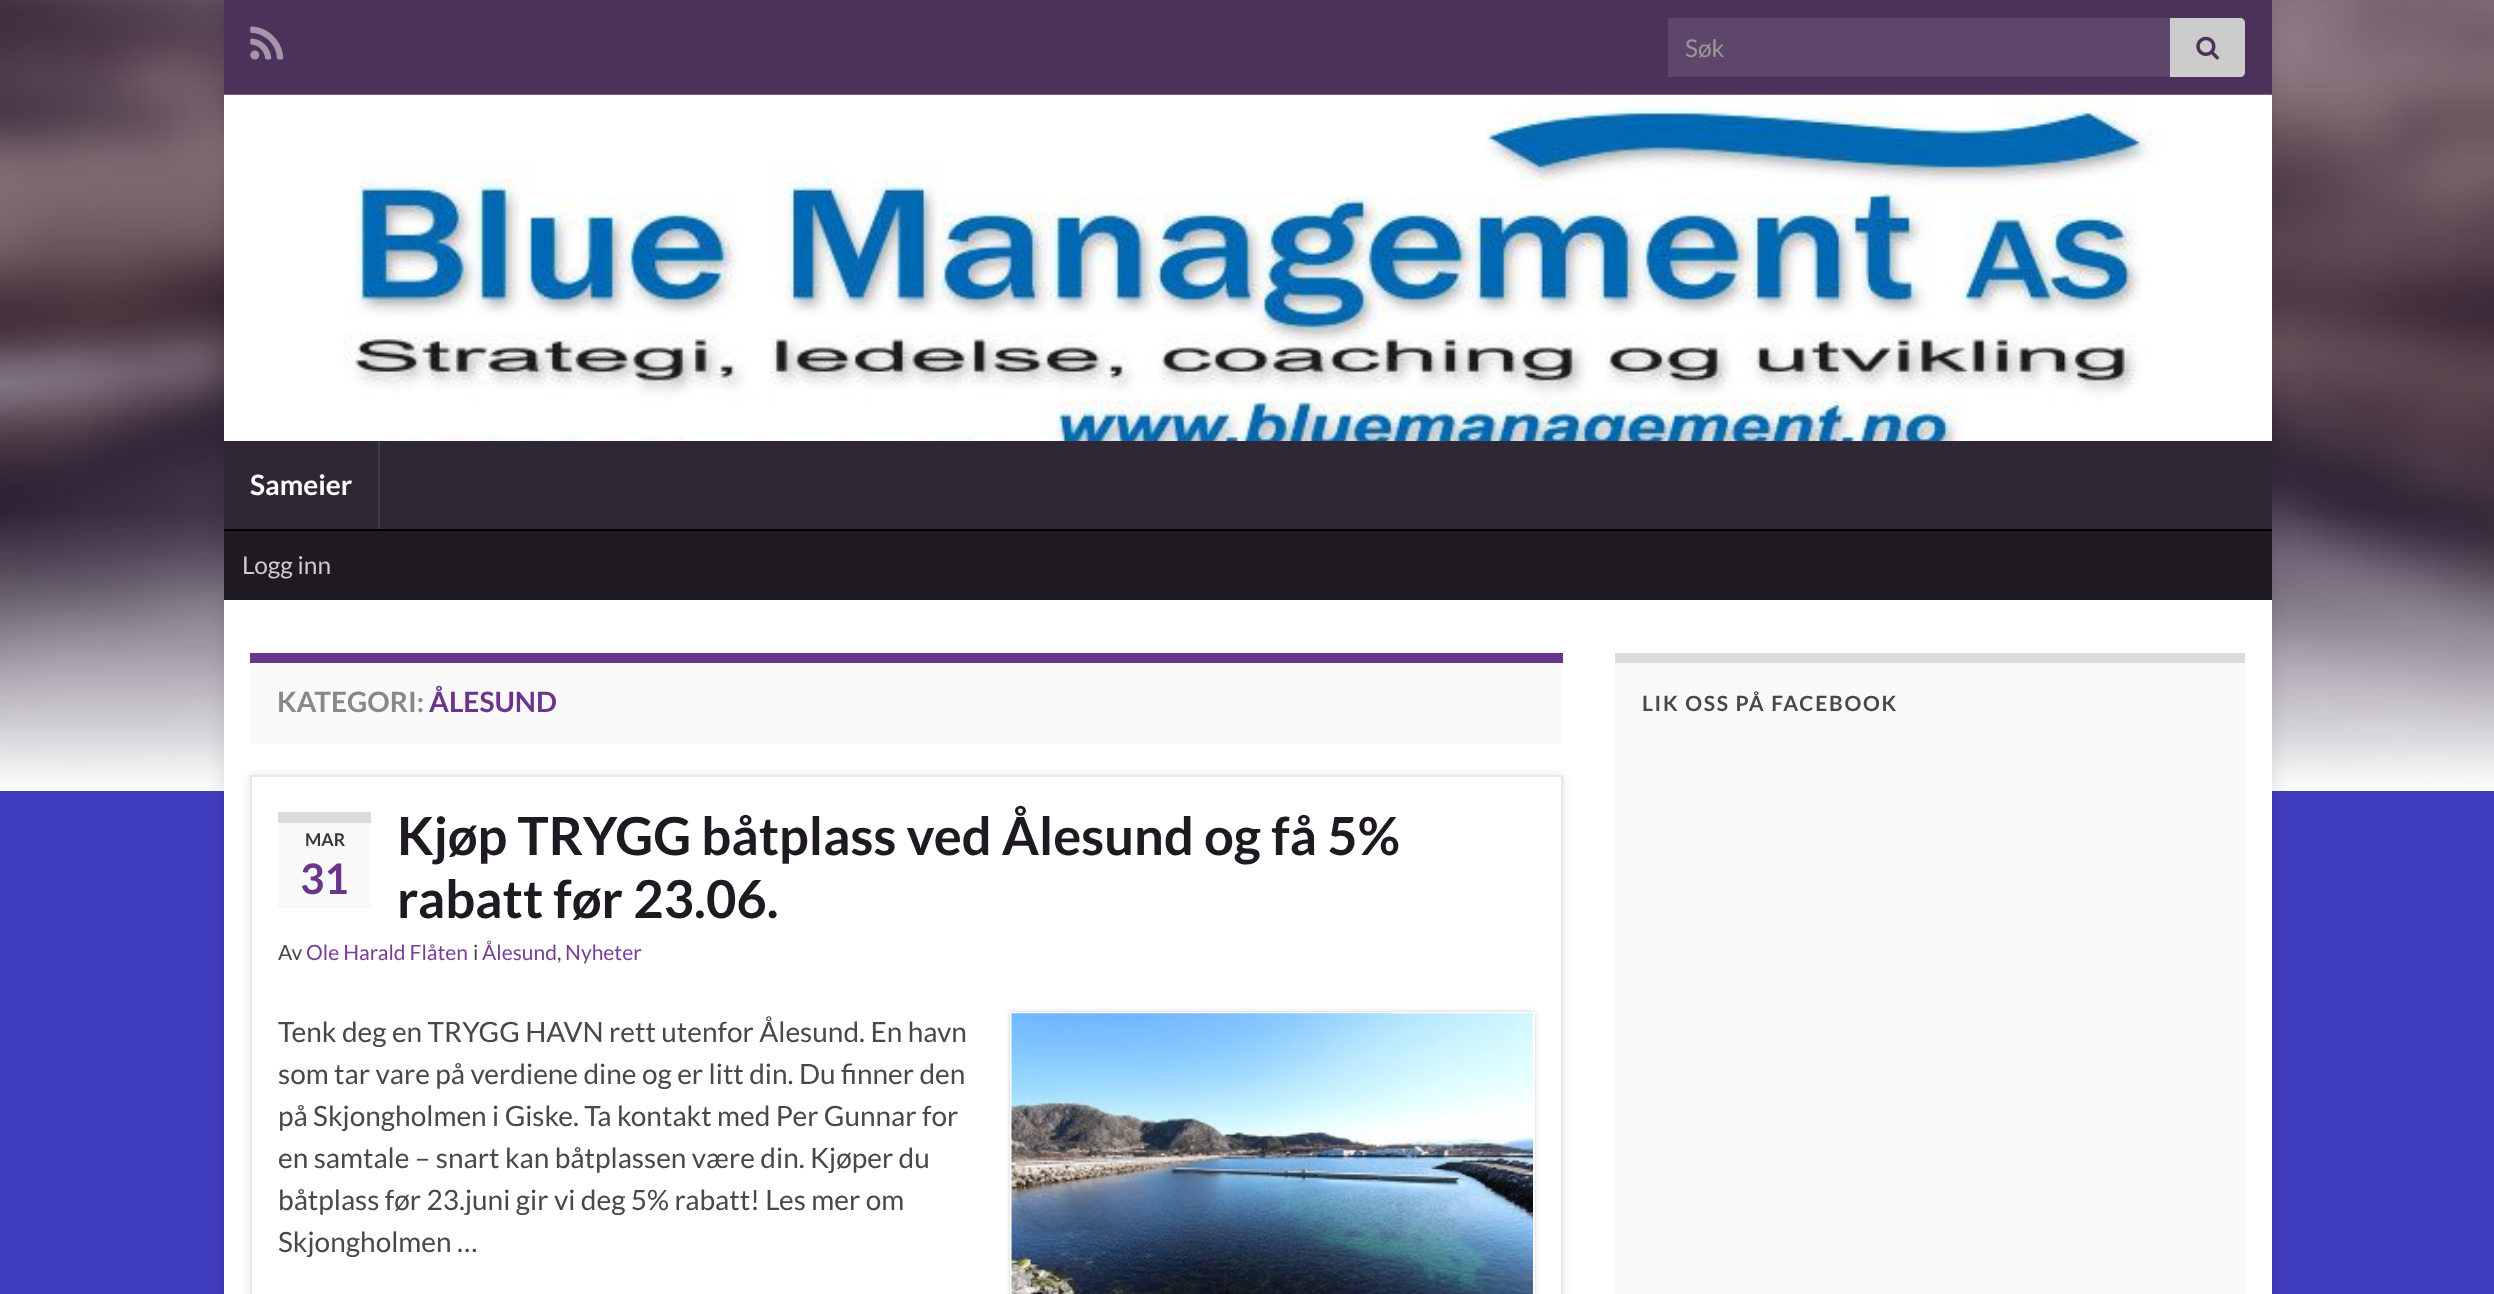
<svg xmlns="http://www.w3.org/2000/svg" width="2494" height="1294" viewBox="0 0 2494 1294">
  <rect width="100%" height="100%" fill="rgb(64,60,190)"/>
  <image x="0" y="0" width="2494" height="791" href="pic1.png"/>
  <rect x="224" y="0" width="2048" height="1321" fill="rgba(0,0,0,0.1)" filter="blur(9px)"/>
  <rect x="224" y="0" width="2048" height="95" fill="rgb(76,49,90)"/>
  <image x="250" y="26" width="34" height="34" href="pic2.png"/>
  <rect x="1668" y="18" width="502" height="59" fill="rgb(94,70,107)"/>
  <text x="1685" y="57" font-family="Lato" font-size="24.5" fill="rgb(153,153,153)">Søk</text>
  <path d="M2170 18H2240C2243 18 2245 20 2245 23V72C2245 75 2243 77 2240 77H2170Z" fill="rgb(204,204,204)"/>
  <image x="2196" y="36" width="23" height="24" href="pic3.png"/>
  <rect x="2271" y="95" width="1" height="346" fill="rgb(255,255,255)"/>
  <image x="224" y="94" width="2048" height="347" href="pic4.png"/>
  <rect x="224" y="441" width="2048" height="88" fill="rgb(47,39,51)"/>
  <rect x="378" y="441" width="2" height="88" fill="rgb(68,61,71)"/>
  <text x="250" y="495" font-family="Lato" font-size="28" font-weight="bold" fill="rgb(255,255,255)">Sameier</text>
  <rect x="224" y="531" width="2048" height="69" fill="rgb(31,26,34)"/>
  <rect x="224" y="529" width="2048" height="2" fill="rgb(0,0,0)"/>
  <text x="242" y="574" font-family="Lato" font-size="24.5" fill="rgb(204,204,204)">Logg inn</text>
  <rect x="224" y="600" width="2048" height="694" fill="rgb(255,255,255)"/>
  <rect x="250" y="663" width="1313" height="81" fill="rgb(249,249,249)"/>
  <rect x="250" y="653" width="1313" height="10" fill="rgb(107,53,137)"/>
  <text x="277" y="712" font-family="Lato" font-size="28" font-weight="bold" fill="rgb(136,136,136)">KATEGORI:</text>
  <text x="429" y="712" font-family="Lato" font-size="28" font-weight="bold" fill="rgb(107,53,137)">ÅLESUND</text>
  <rect x="250" y="775" width="1313" height="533" fill="rgba(0,0,0,0.1)" filter="blur(4.5px)"/>
  <rect x="251" y="776" width="1311" height="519" fill="rgb(255,255,255)" stroke="rgb(233,232,227)" stroke-width="2"/>
  <rect x="278" y="823" width="93" height="85" fill="rgb(249,249,249)"/>
  <rect x="278" y="812" width="93" height="11" fill="rgb(219,219,219)"/>
  <text x="305" y="846" font-family="Lato" font-size="17.5" font-weight="bold" fill="rgb(59,56,61)">MAR</text>
  <text x="300" y="894" font-family="Lato" font-size="42" font-weight="bold" fill="rgb(107,53,137)">31</text>
  <g font-family="Lato" font-size="52.5" font-weight="bold" fill="rgb(31,26,34)">
    <text>
      <tspan x="397" y="855">Kjøp TRYGG båtplass ved Ålesund og få 5%</tspan>
      <tspan x="397" y="918">rabatt før 23.06.</tspan>
    </text>
  </g>
  <text x="278" y="960" font-family="Lato" font-size="21" fill="rgb(74,71,75)">Av</text>
  <text x="306" y="960" font-family="Lato" font-size="21" fill="rgb(120,61,152)">Ole Harald Flåten</text>
  <text x="473" y="960" font-family="Lato" font-size="21" fill="rgb(74,71,75)">i</text>
  <text x="482" y="960" font-family="Lato" font-size="21" fill="rgb(120,61,152)">Ålesund</text>
  <text x="557" y="960" font-family="Lato" font-size="21" fill="rgb(74,71,75)">,</text>
  <text x="565" y="960" font-family="Lato" font-size="21" fill="rgb(120,61,152)">Nyheter</text>
  <g font-family="Lato" font-size="28" fill="rgb(74,71,75)">
    <text>
      <tspan x="278" y="1042">Tenk deg en TRYGG HAVN rett utenfor Ålesund. En havn</tspan>
      <tspan x="278" y="1084">som tar vare på verdiene dine og er litt din. Du finner den</tspan>
      <tspan x="278" y="1126">på Skjongholmen i Giske. Ta kontakt med Per Gunnar for</tspan>
      <tspan x="278" y="1168">en samtale – snart kan båtplassen være din. Kjøper du</tspan>
      <tspan x="278" y="1210">båtplass før 23.juni gir vi deg 5% rabatt! Les mer om</tspan>
      <tspan x="278" y="1252">Skjongholmen …</tspan>
    </text>
  </g>
  <rect x="1010" y="1012" width="525" height="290" fill="rgba(0,0,0,0.2)" filter="blur(2.5px)"/>
  <rect x="1011" y="1013" width="523" height="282" fill="none" stroke="rgb(255,255,255)" stroke-width="2"/>
  <image x="1011" y="1013" width="522" height="281" href="pic5.png"/>
  <rect x="1615" y="663" width="630" height="631" fill="rgb(249,249,249)"/>
  <rect x="1615" y="653" width="630" height="10" fill="rgb(219,219,219)"/>
  <text x="1642" y="711" font-family="Lato" font-size="21" font-weight="bold" letter-spacing="1.75" fill="rgb(74,71,75)">LIK OSS PÅ FACEBOOK</text>
</svg>
